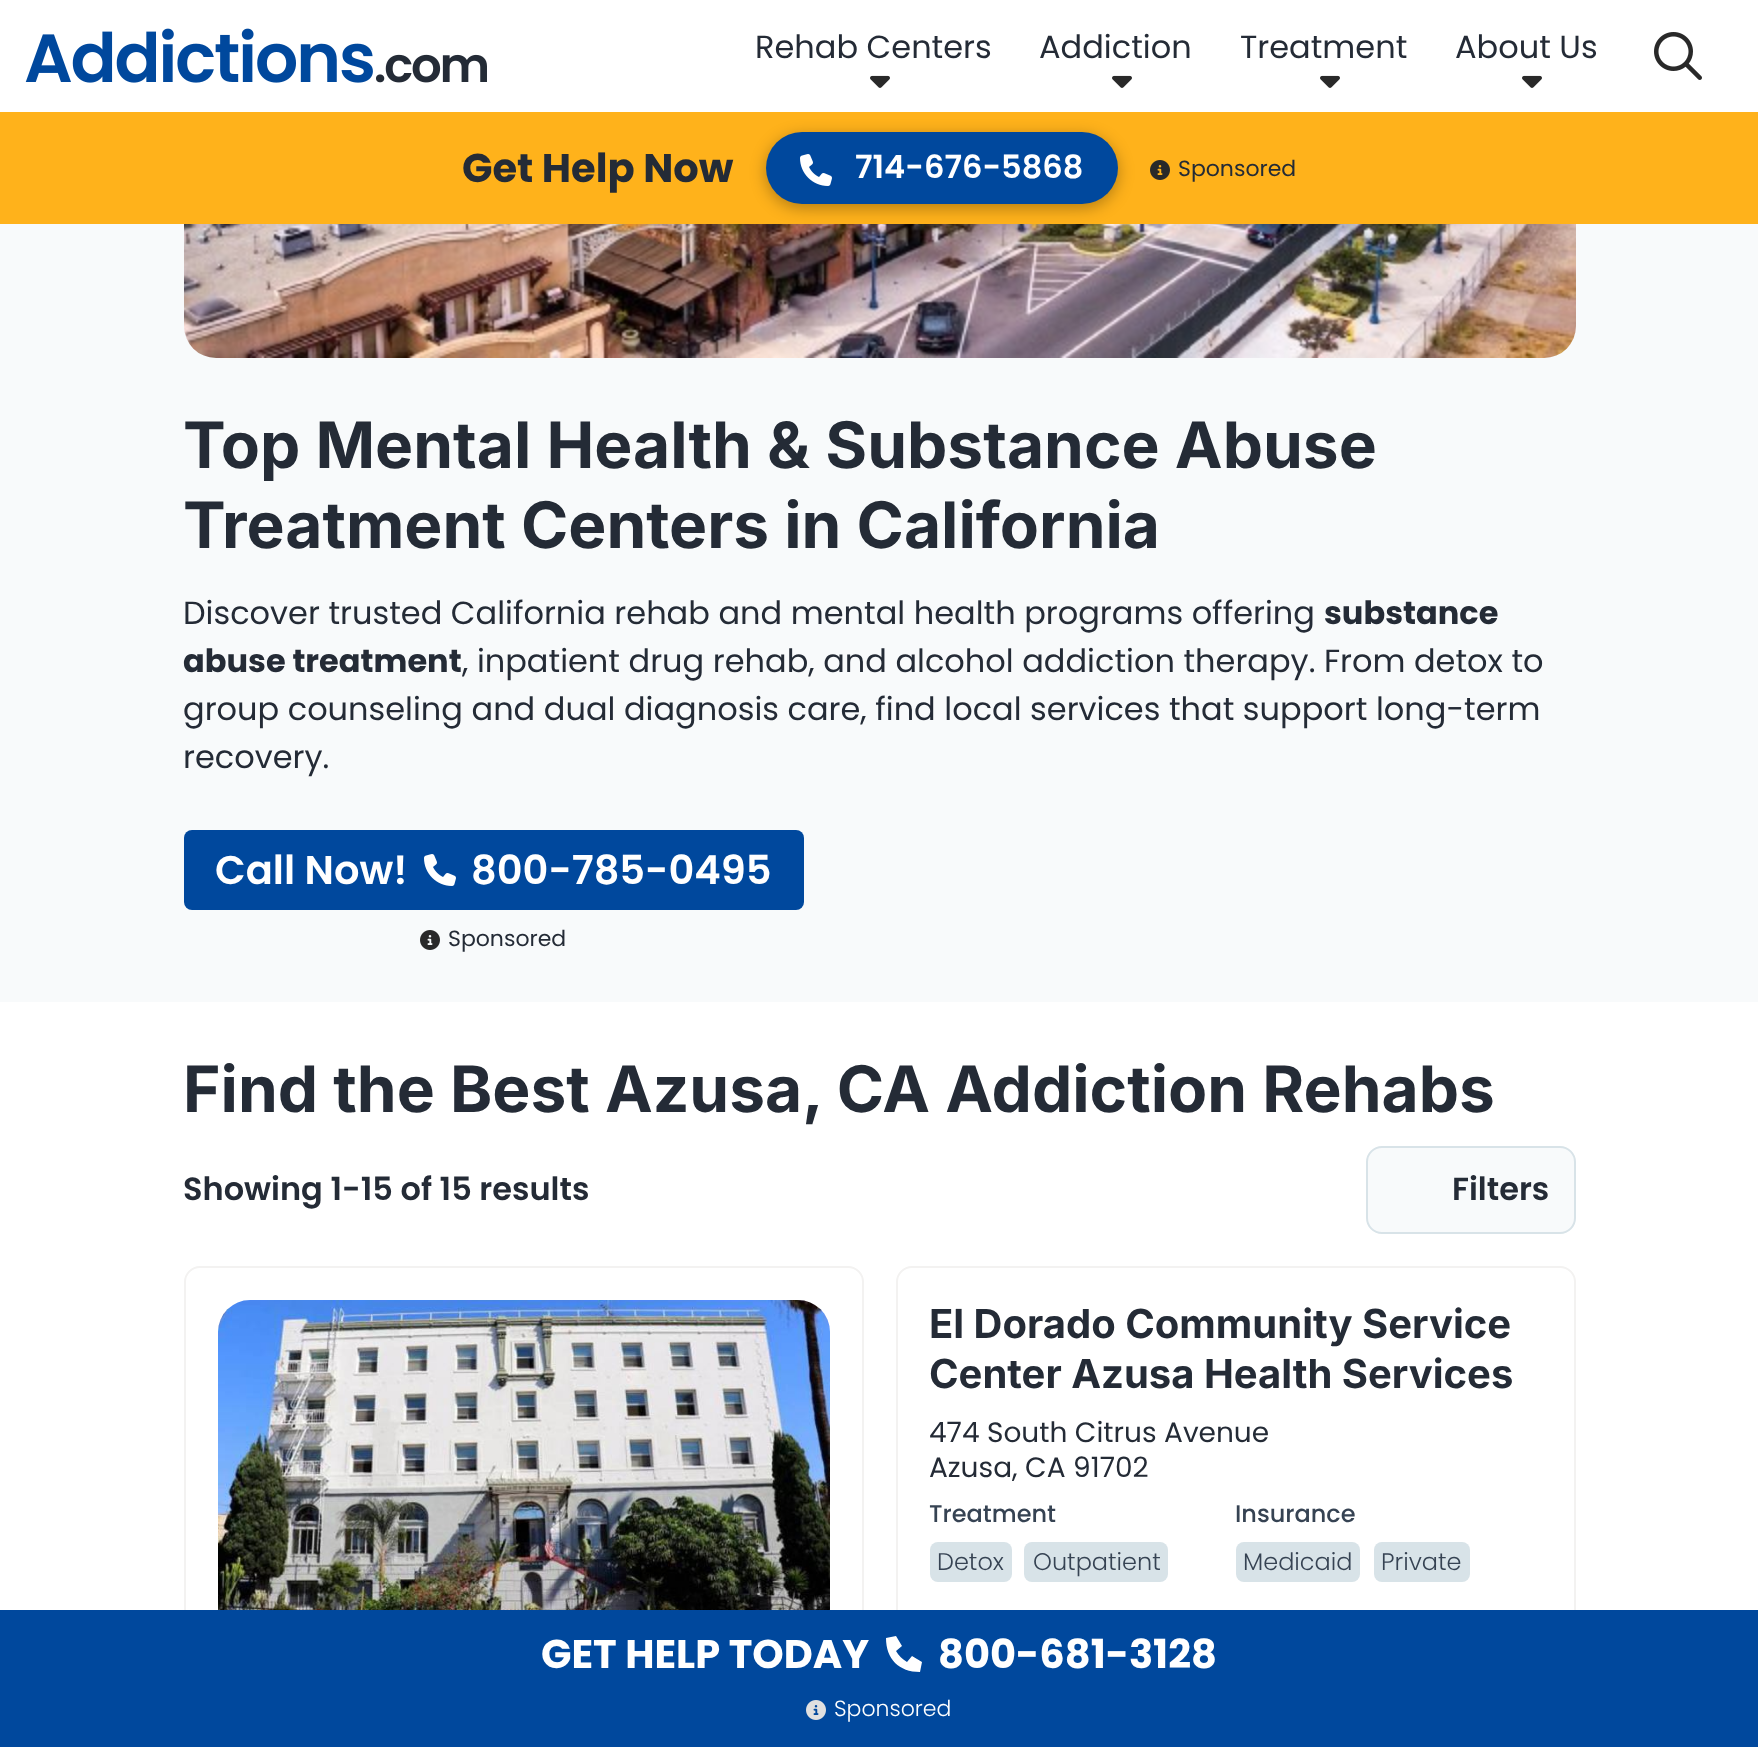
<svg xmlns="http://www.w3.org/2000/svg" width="1758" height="1747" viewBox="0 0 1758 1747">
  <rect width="100%" height="100%" fill="rgb(255,255,255)"/>
  <image x="25" y="28" width="462" height="55" href="pic1.png"/>
  <text x="755" y="58" font-family="Poppins" font-size="32" fill="rgb(36,43,54)">Rehab Centers</text>
  <image x="870" y="75" width="20" height="13" href="pic2.png"/>
  <text x="1039" y="58" font-family="Poppins" font-size="32" fill="rgb(36,43,54)">Addiction</text>
  <image x="1112" y="75" width="20" height="13" href="pic2.png"/>
  <text x="1240" y="58" font-family="Poppins" font-size="32" fill="rgb(36,43,54)">Treatment</text>
  <image x="1320" y="75" width="20" height="13" href="pic2.png"/>
  <text x="1455" y="58" font-family="Poppins" font-size="32" fill="rgb(36,43,54)">About Us</text>
  <image x="1522" y="75" width="20" height="13" href="pic2.png"/>
  <image x="1654" y="32" width="48" height="48" href="pic3.png"/>
  <rect x="0" y="112" width="1758" height="112" fill="rgb(255,178,27)"/>
  <text x="462" y="182" font-family="Poppins" font-size="40" font-weight="bold" fill="rgb(36,43,54)">Get Help Now</text>
  <rect x="0" y="224" width="1758" height="778" fill="rgb(248,250,251)"/>
  <image x="184" y="224" width="1392" height="134" href="pic6.png"/>
  <rect x="766" y="136" width="352" height="72" rx="36" fill="rgba(0,0,0,0.3)" filter="blur(8px)"/>
  <rect x="766" y="132" width="352" height="72" rx="36" fill="rgb(0,72,157)"/>
  <image x="800" y="154" width="32" height="32" href="pic4.png"/>
  <text x="855" y="178" font-family="Poppins" font-size="32" font-weight="600" fill="rgb(255,255,255)">714-676-5868</text>
  <image x="1150" y="160" width="20" height="20" href="pic5.png"/>
  <text x="1178" y="176" font-family="Poppins" font-size="22" fill="rgb(36,43,54)">Sponsored</text>
  <g font-family="Inter" font-size="64" font-weight="bold" fill="rgb(36,43,54)">
    <text>
      <tspan x="183" y="468">Top Mental Health &amp; Substance Abuse</tspan>
      <tspan x="183" y="548">Treatment Centers in California</tspan>
    </text>
  </g>
  <text x="183" y="624" font-family="Poppins" font-size="32" fill="rgb(36,43,54)">Discover trusted California rehab and mental health programs offering</text>
  <g font-family="Poppins" font-size="32" font-weight="bold" fill="rgb(36,43,54)">
    <text x="1324" y="624">substance</text>
    <text x="183" y="672">abuse treatment</text>
  </g>
  <g font-family="Poppins" font-size="32" fill="rgb(36,43,54)">
    <text x="462" y="672">, inpatient drug rehab, and alcohol addiction therapy. From detox to</text>
    <text>
      <tspan x="183" y="720">group counseling and dual diagnosis care, find local services that support long-term</tspan>
      <tspan x="183" y="768">recovery.</tspan>
    </text>
  </g>
  <rect x="184" y="830" width="620" height="80" rx="8" fill="rgb(0,72,157)"/>
  <text x="215" y="884" font-family="Poppins" font-size="40" font-weight="600" fill="rgb(255,255,255)">Call Now!</text>
  <image x="424" y="854" width="32" height="32" href="pic4.png"/>
  <text x="471" y="884" font-family="Poppins" font-size="40" font-weight="600" fill="rgb(255,255,255)">800-785-0495</text>
  <image x="420" y="930" width="20" height="20" href="pic7.png"/>
  <text x="448" y="946" font-family="Poppins" font-size="22" fill="rgb(36,43,54)">Sponsored</text>
  <text x="183" y="1112" font-family="Inter" font-size="64" font-weight="bold" fill="rgb(36,43,54)">Find the Best Azusa, CA Addiction Rehabs</text>
  <text x="183" y="1200" font-family="Poppins" font-size="32" font-weight="600" fill="rgb(36,43,54)">Showing 1-15 of 15 results</text>
  <rect x="1367" y="1147" width="208" height="86" rx="15" fill="rgb(248,250,251)" stroke="rgb(216,227,232)" stroke-width="2"/>
  <text x="1452" y="1200" font-family="Poppins" font-size="32" font-weight="600" fill="rgb(36,43,54)">Filters</text>
  <rect x="185" y="1267" width="678" height="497" rx="15" fill="none" stroke="rgb(243,242,241)" stroke-width="2"/>
  <image x="218" y="1300" width="612" height="310" href="pic8.png"/>
  <rect x="897" y="1267" width="678" height="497" rx="15" fill="none" stroke="rgb(243,242,241)" stroke-width="2"/>
  <g font-family="Inter" font-size="40" font-weight="bold" fill="rgb(36,43,54)">
    <text>
      <tspan x="929" y="1338">El Dorado Community Service</tspan>
      <tspan x="929" y="1388">Center Azusa Health Services</tspan>
    </text>
  </g>
  <g font-family="Poppins" font-size="28" fill="rgb(36,43,54)">
    <text>
      <tspan x="929" y="1442">474 South Citrus Avenue</tspan>
      <tspan x="929" y="1477">Azusa, CA 91702</tspan>
    </text>
  </g>
  <text x="929" y="1522" font-family="Poppins" font-size="24" font-weight="500" fill="rgb(54,67,83)">Treatment</text>
  <rect x="930" y="1542" width="82" height="40" rx="8" fill="rgb(216,227,232)"/>
  <text x="937" y="1570" font-family="Poppins" font-size="24" font-weight="300" fill="rgb(54,67,83)">Detox</text>
  <rect x="1024" y="1542" width="144" height="40" rx="8" fill="rgb(216,227,232)"/>
  <text x="1033" y="1570" font-family="Poppins" font-size="24" font-weight="300" fill="rgb(54,67,83)">Outpatient</text>
  <text x="1235" y="1522" font-family="Poppins" font-size="24" font-weight="500" fill="rgb(54,67,83)">Insurance</text>
  <rect x="1236" y="1542" width="124" height="40" rx="8" fill="rgb(216,227,232)"/>
  <text x="1243" y="1570" font-family="Poppins" font-size="24" font-weight="300" fill="rgb(54,67,83)">Medicaid</text>
  <rect x="1374" y="1542" width="96" height="40" rx="8" fill="rgb(216,227,232)"/>
  <text x="1381" y="1570" font-family="Poppins" font-size="24" font-weight="300" fill="rgb(54,67,83)">Private</text>
  <rect x="0" y="1610" width="1758" height="137" fill="rgb(0,72,157)"/>
  <text x="541" y="1668" font-family="Poppins" font-size="40" font-weight="bold" fill="rgb(255,255,255)">GET HELP TODAY</text>
  <path d="M886 1638L896 1636L902 1646L896 1651C898.5 1655.5 902.5 1659.5 907 1662L912 1656L922 1662L920 1672C899 1672 886 1659 886 1638Z" fill="rgb(255,255,255)"/>
  <text x="938" y="1668" font-family="Poppins" font-size="40" font-weight="bold" fill="rgb(255,255,255)">800-681-3128</text>
  <image x="806" y="1700" width="20" height="20" href="pic9.png"/>
  <text x="834" y="1716" font-family="Poppins" font-size="22" font-weight="300" fill="rgb(255,255,255)">Sponsored</text>
</svg>
